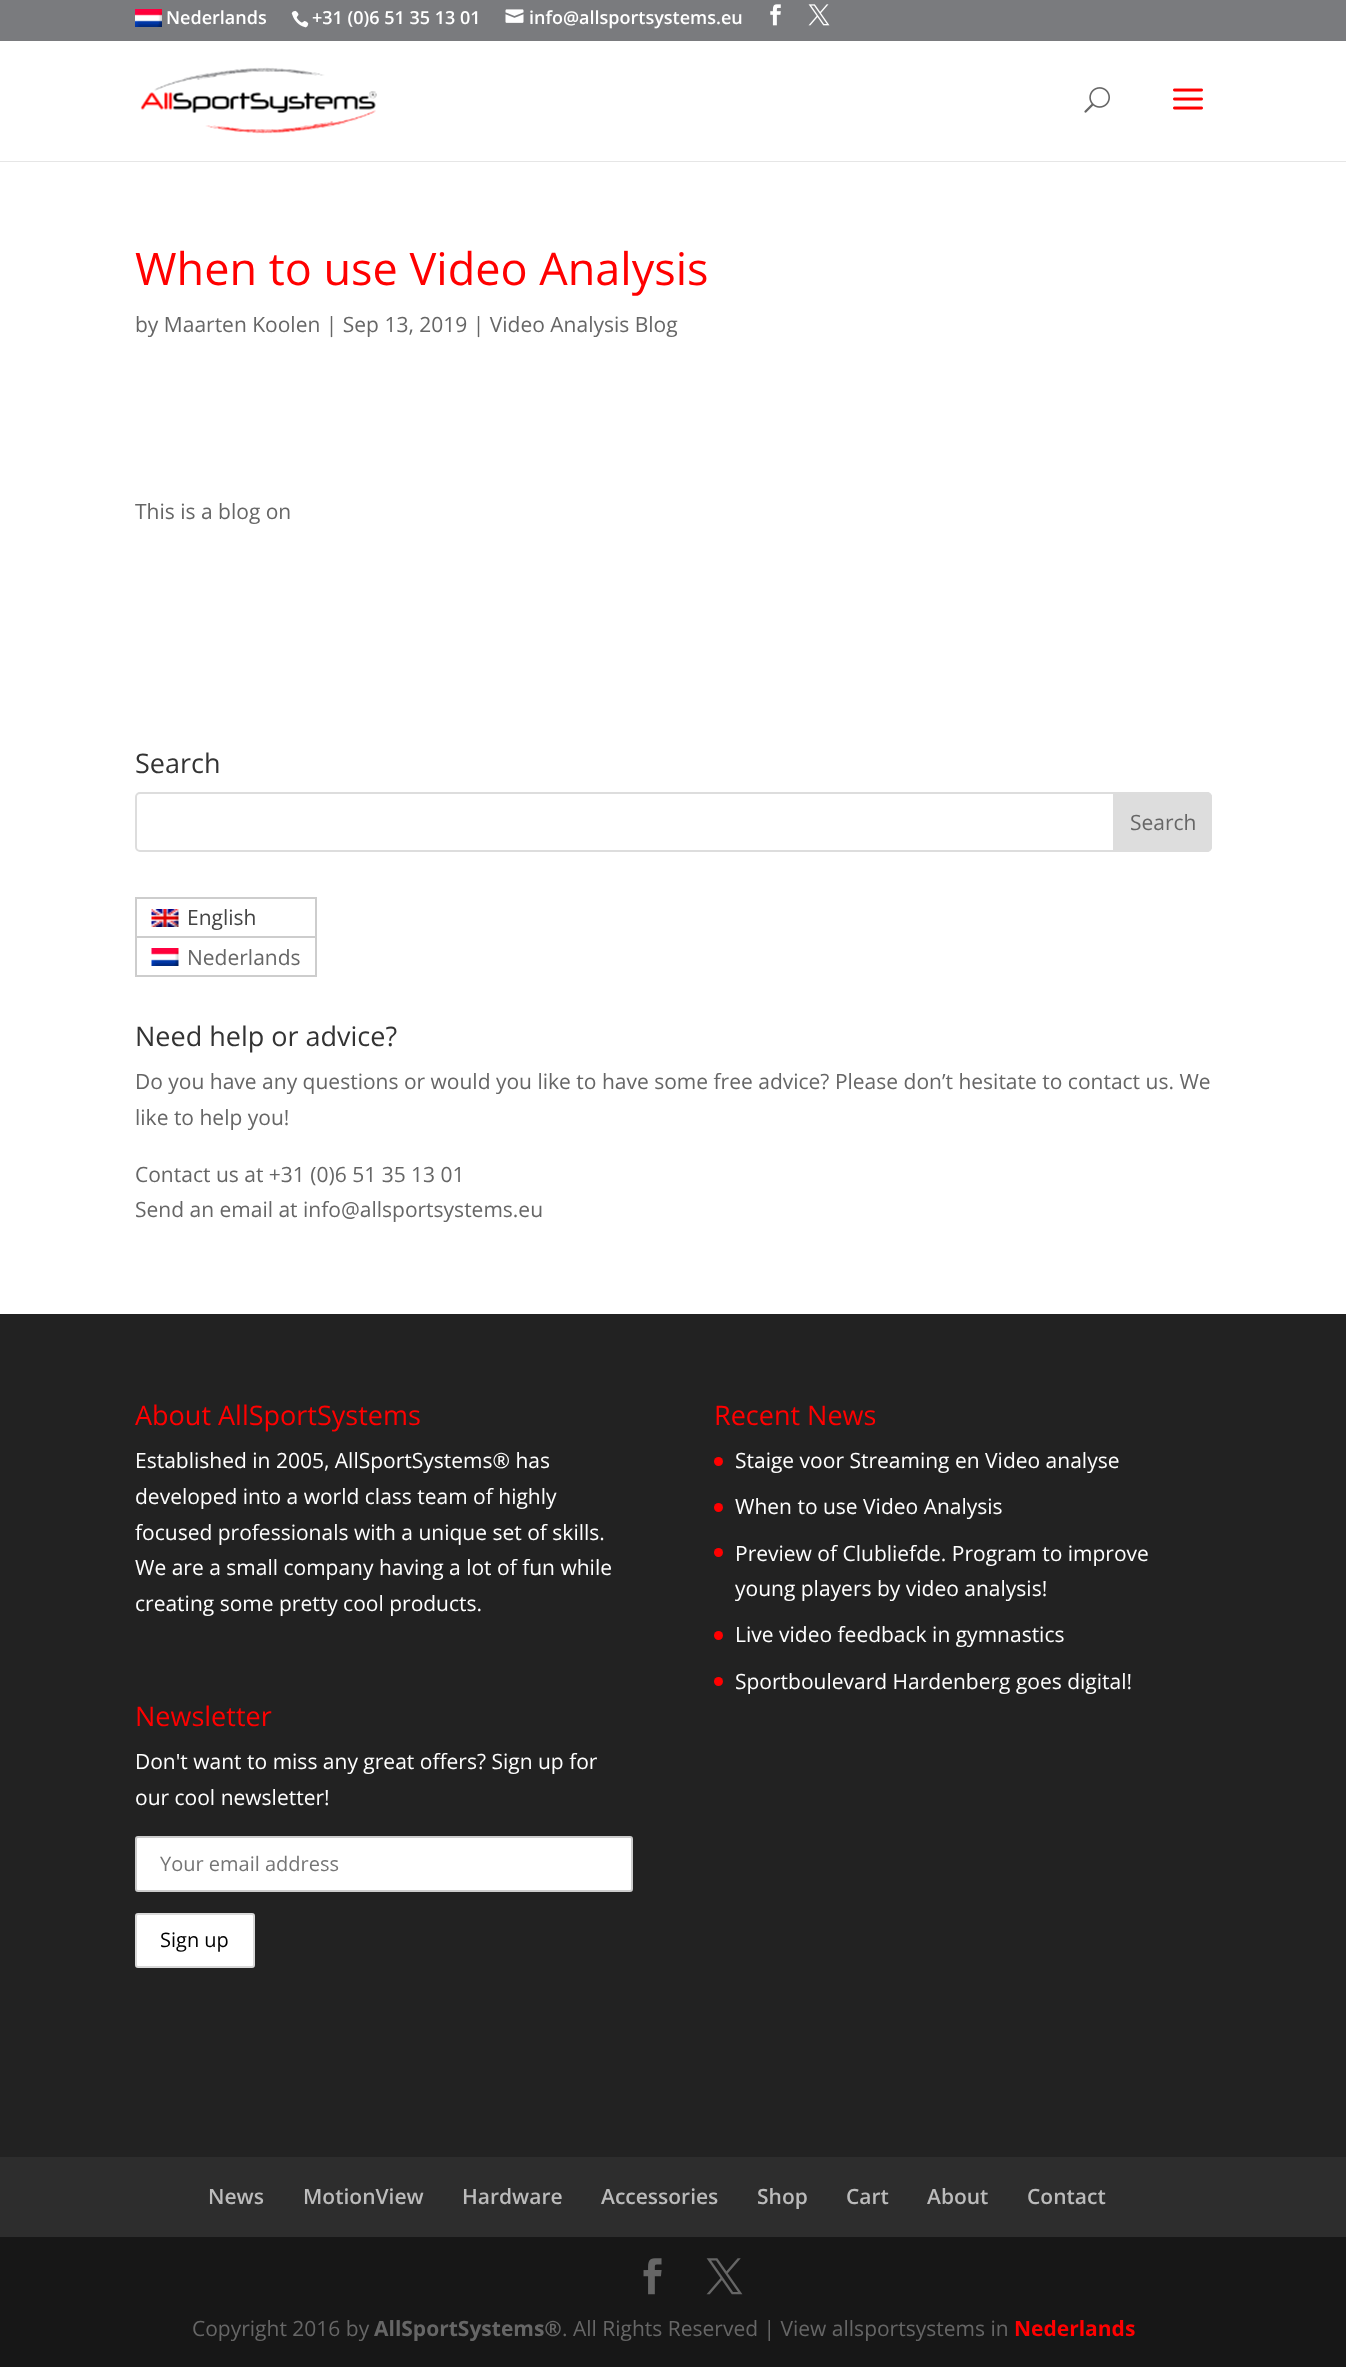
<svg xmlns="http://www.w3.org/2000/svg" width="1346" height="2367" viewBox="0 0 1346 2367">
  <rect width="100%" height="100%" fill="rgb(255,255,255)"/>
  <rect x="0" y="0" width="1346" height="41" fill="rgb(122,123,126)"/>
  <image x="135" y="9" width="27" height="18" href="pic1.png"/>
  <text x="166" y="24" font-family="Open Sans" font-size="18" font-weight="600" fill="rgb(255,255,255)">Nederlands</text>
  <image x="291" y="10" width="18" height="18" href="pic2.png"/>
  <text x="312" y="24" font-family="Open Sans" font-size="18" font-weight="600" fill="rgb(255,255,255)">+31 (0)6 51 35 13 01</text>
  <image x="505" y="9" width="19" height="14" href="pic3.png"/>
  <text x="529" y="24" font-family="Open Sans" font-size="18" font-weight="600" fill="rgb(255,255,255)">info@allsportsystems.eu</text>
  <image x="770" y="4" width="11" height="22" href="pic4.png"/>
  <image x="808" y="4" width="22" height="22" href="pic5.png"/>
  <rect x="0" y="161" width="1346" height="1" fill="rgb(230,230,230)"/>
  <image x="140" y="67" width="237" height="67" href="pic6.png"/>
  <image x="1084" y="87" width="26" height="26" href="pic7.png"/>
  <image x="1173" y="88" width="30" height="22" href="pic8.png"/>
  <text x="135" y="285" font-family="Open Sans" font-size="45" fill="rgb(255,0,0)">When to use Video Analysis</text>
  <g font-family="Open Sans" font-size="21" fill="rgb(102,102,102)">
    <text x="135" y="332">by Maarten Koolen | Sep 13, 2019 | Video Analysis Blog</text>
    <text x="135" y="519">This is a blog on</text>
  </g>
  <text x="135" y="773" font-family="Open Sans" font-size="27" fill="rgb(51,51,51)">Search</text>
  <rect x="136" y="793" width="1075" height="58" rx="4" fill="none" stroke="rgb(221,221,221)" stroke-width="2"/>
  <path d="M1114 793H1207C1209 793 1211 795 1211 797V847C1211 849 1209 851 1207 851H1114Z" fill="rgb(221,221,221)" stroke="rgb(221,221,221)" stroke-width="2"/>
  <text x="1130" y="830" font-family="Open Sans" font-size="21" fill="rgb(102,102,102)">Search</text>
  <rect x="135" y="897" width="182" height="2" fill="rgb(205,205,205)"/>
  <rect x="315" y="897" width="2" height="80" fill="rgb(205,205,205)"/>
  <rect x="135" y="897" width="2" height="80" fill="rgb(205,205,205)"/>
  <rect x="137" y="936" width="178" height="2" fill="rgb(205,205,205)"/>
  <image x="151" y="909" width="28" height="18" href="pic9.png"/>
  <text x="187" y="925" font-family="Open Sans" font-size="21" fill="rgb(68,68,68)">English</text>
  <rect x="137" y="975" width="178" height="2" fill="rgb(205,205,205)"/>
  <image x="151" y="948" width="28" height="18" href="pic10.png"/>
  <text x="187" y="965" font-family="Open Sans" font-size="21" fill="rgb(102,102,102)">Nederlands</text>
  <text x="135" y="1046" font-family="Open Sans" font-size="27" fill="rgb(51,51,51)">Need help or advice?</text>
  <g font-family="Open Sans" font-size="21" fill="rgb(102,102,102)">
    <text>
      <tspan x="135" y="1089">Do you have any questions or would you like to have some free advice? Please don’t hesitate to contact us. We</tspan>
      <tspan x="135" y="1125">like to help you!</tspan>
    </text>
    <text>
      <tspan x="135" y="1182">Contact us at +31 (0)6 51 35 13 01</tspan>
      <tspan x="135" y="1217">Send an email at info@allsportsystems.eu</tspan>
    </text>
  </g>
  <rect x="0" y="1314" width="1346" height="843" fill="rgb(34,34,34)"/>
  <text x="135" y="1425" font-family="Open Sans" font-size="27" fill="rgb(255,0,0)">About AllSportSystems</text>
  <g font-family="Open Sans" font-size="21" fill="rgb(255,255,255)">
    <text>
      <tspan x="135" y="1468">Established in 2005, AllSportSystems® has</tspan>
      <tspan x="135" y="1504">developed into a world class team of highly</tspan>
      <tspan x="135" y="1540">focused professionals with a unique set of skills.</tspan>
      <tspan x="135" y="1575">We are a small company having a lot of fun while</tspan>
      <tspan x="135" y="1611">creating some pretty cool products.</tspan>
    </text>
  </g>
  <text x="135" y="1726" font-family="Open Sans" font-size="27" fill="rgb(255,0,0)">Newsletter</text>
  <g font-family="Open Sans" font-size="21" fill="rgb(255,255,255)">
    <text>
      <tspan x="135" y="1769">Don't want to miss any great offers? Sign up for</tspan>
      <tspan x="135" y="1805">our cool newsletter!</tspan>
    </text>
  </g>
  <rect x="136" y="1837" width="496" height="54" rx="2" fill="rgb(255,255,255)" stroke="rgb(204,204,204)" stroke-width="2"/>
  <text x="160" y="1871" font-family="Open Sans" font-size="20" fill="rgb(117,117,117)">Your email address</text>
  <rect x="136" y="1914" width="118" height="53" rx="2" fill="rgb(255,255,255)" stroke="rgb(217,217,217)" stroke-width="2"/>
  <text x="160" y="1947" font-family="Open Sans" font-size="20" fill="rgb(0,0,0)">Sign up</text>
  <text x="714" y="1425" font-family="Open Sans" font-size="27" fill="rgb(255,0,0)">Recent News</text>
  <circle cx="718.5" cy="1461.5" r="4.5" fill="rgb(255,0,0)"/>
  <text x="735" y="1468" font-family="Open Sans" font-size="21" fill="rgb(255,255,255)">Staige voor Streaming en Video analyse</text>
  <circle cx="718.5" cy="1507.5" r="4.5" fill="rgb(255,0,0)"/>
  <text x="735" y="1514" font-family="Open Sans" font-size="21" fill="rgb(255,255,255)">When to use Video Analysis</text>
  <circle cx="718.5" cy="1552.5" r="4.5" fill="rgb(255,0,0)"/>
  <g font-family="Open Sans" font-size="21" fill="rgb(255,255,255)">
    <text>
      <tspan x="735" y="1561">Preview of Clubliefde. Program to improve</tspan>
      <tspan x="735" y="1596">young players by video analysis!</tspan>
    </text>
  </g>
  <circle cx="718.5" cy="1635.5" r="4.5" fill="rgb(255,0,0)"/>
  <text x="735" y="1642" font-family="Open Sans" font-size="21" fill="rgb(255,255,255)">Live video feedback in gymnastics</text>
  <circle cx="718.5" cy="1681.5" r="4.5" fill="rgb(255,0,0)"/>
  <text x="735" y="1689" font-family="Open Sans" font-size="21" fill="rgb(255,255,255)">Sportboulevard Hardenberg goes digital!</text>
  <rect x="0" y="2157" width="1346" height="80" fill="rgb(45,45,45)"/>
  <g font-family="Open Sans" font-size="21" font-weight="600" fill="rgb(187,187,187)">
    <text x="208" y="2204">News</text>
    <text x="303" y="2204">MotionView</text>
    <text x="462" y="2204">Hardware</text>
    <text x="601" y="2204">Accessories</text>
    <text x="757" y="2204">Shop</text>
    <text x="846" y="2204">Cart</text>
    <text x="927" y="2204">About</text>
    <text x="1027" y="2204">Contact</text>
  </g>
  <rect x="0" y="2237" width="1346" height="130" fill="rgb(23,23,23)"/>
  <image x="643" y="2258" width="19" height="37" href="pic11.png"/>
  <image x="706" y="2258" width="37" height="37" href="pic12.png"/>
  <text x="192" y="2336" font-family="Open Sans" font-size="21" fill="rgb(102,102,102)">Copyright 2016 by</text>
  <text x="374" y="2336" font-family="Open Sans" font-size="21" font-weight="bold" fill="rgb(102,102,102)">AllSportSystems®</text>
  <text x="562" y="2336" font-family="Open Sans" font-size="21" fill="rgb(102,102,102)">. All Rights Reserved | View allsportsystems in</text>
  <text x="1014" y="2336" font-family="Open Sans" font-size="21" font-weight="bold" fill="rgb(255,0,0)">Nederlands</text>
</svg>
